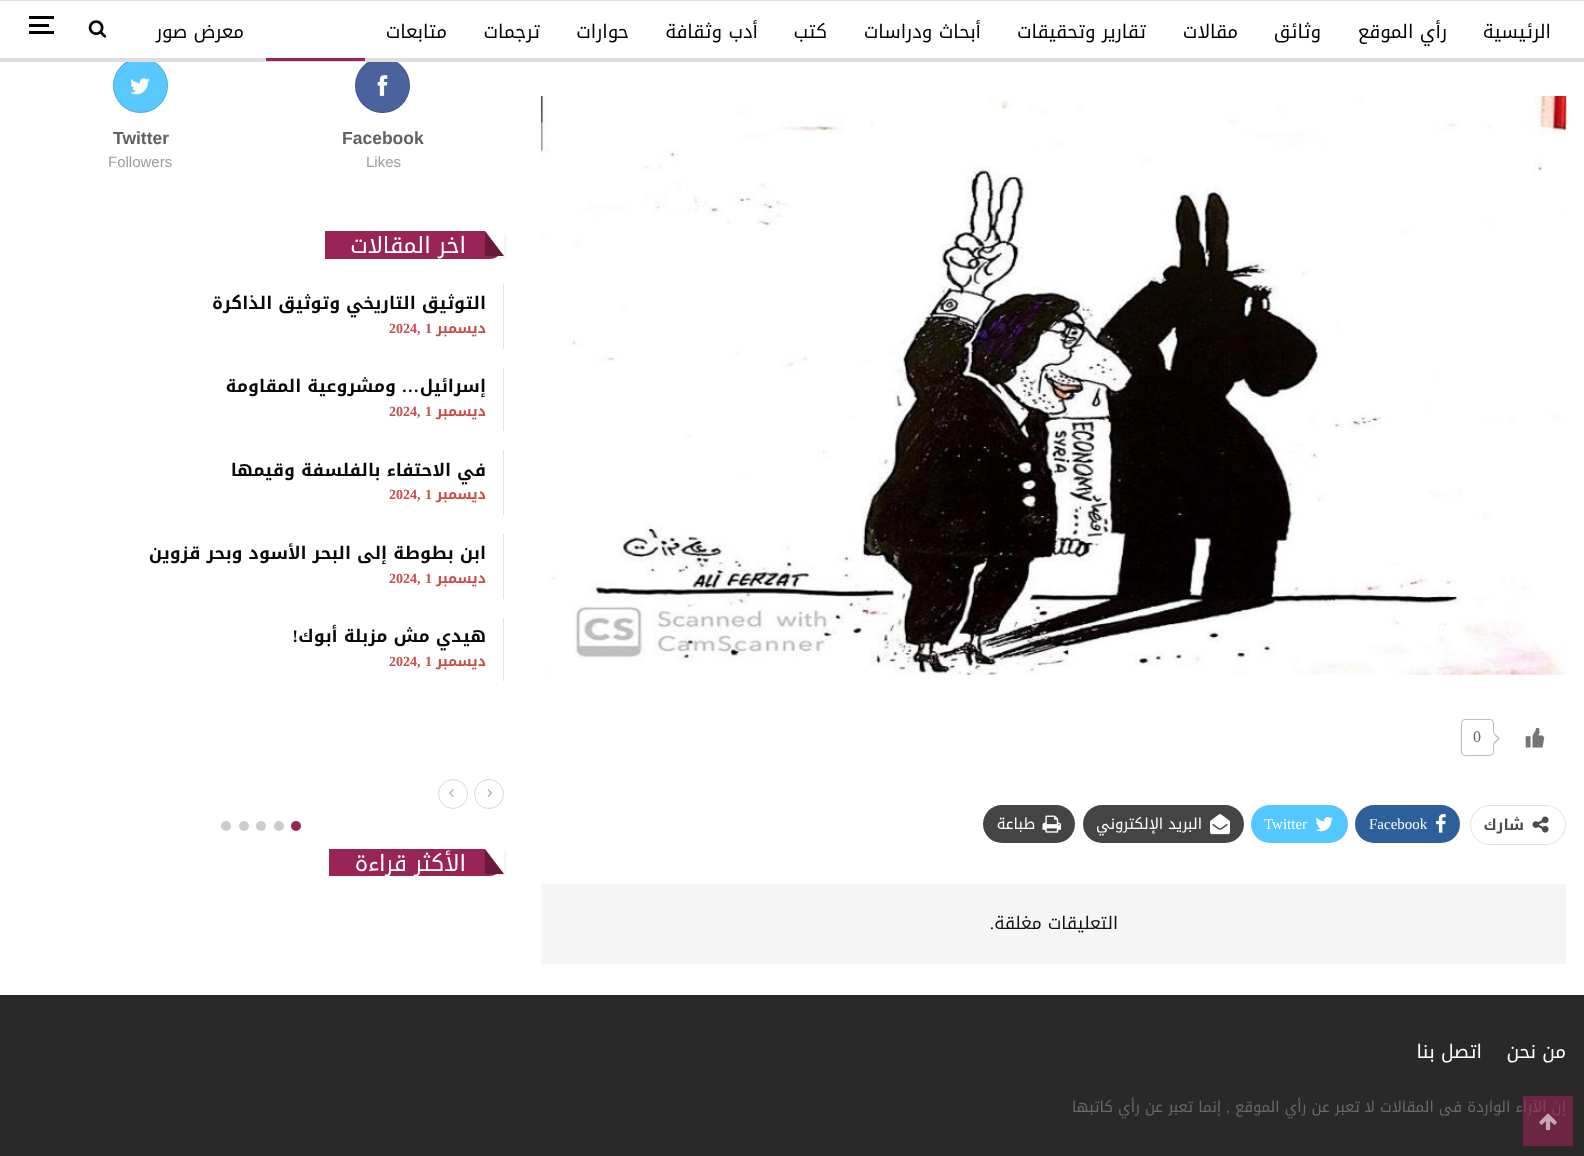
<svg xmlns="http://www.w3.org/2000/svg" width="1584" height="1156" viewBox="0 0 1584 1156">
  <defs>
    <clipPath id="clip1"><path d="M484 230H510V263H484ZM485 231H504V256H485Z" clip-rule="evenodd"/></clipPath>
    <clipPath id="clip2"><path d="M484 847H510V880H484ZM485 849H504V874H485Z" clip-rule="evenodd"/></clipPath>
  </defs>
  <rect width="100%" height="100%" fill="rgb(255,255,255)"/>
  <rect x="0" y="0" width="1584" height="1" fill="rgb(222,222,222)"/>
  <circle cx="382.5" cy="85.5" r="27.5" fill="rgb(74,99,159)"/>
  <circle cx="382.5" cy="85.5" r="27" fill="none" stroke="rgba(0,0,0,0.15)"/>
  <circle cx="140.5" cy="85.5" r="27.5" fill="rgb(89,200,255)"/>
  <circle cx="140.5" cy="85.5" r="27" fill="none" stroke="rgba(0,0,0,0.15)"/>
  <rect x="0" y="58" width="1584" height="4" fill="rgb(222,222,222)"/>
  <g font-family="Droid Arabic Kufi" font-size="18.75" direction="rtl" fill="rgb(0,0,0)">
    <text x="1551" y="38">الرئيسية</text>
    <text x="1447" y="38">رأي الموقع</text>
    <text x="1321" y="38">وثائق</text>
    <text x="1238" y="38">مقالات</text>
    <text x="1146" y="38">تقارير وتحقيقات</text>
    <text x="981" y="38">أبحاث ودراسات</text>
    <text x="827" y="38">كتب</text>
    <text x="758" y="38">أدب وثقافة</text>
    <text x="629" y="38">حوارات</text>
    <text x="540" y="38">ترجمات</text>
    <text x="447" y="38">متابعات</text>
    <text x="244" y="38">معرض صور</text>
  </g>
  <rect x="266" y="58" width="99" height="3" fill="rgb(153,37,86)"/>
  <image x="88" y="20" width="19" height="18" href="pic1.png"/>
  <rect x="29" y="24" width="20" height="3" fill="rgb(0,0,0)"/>
  <rect x="29" y="16" width="25" height="3" fill="rgb(0,0,0)"/>
  <rect x="29" y="31" width="25" height="3" fill="rgb(0,0,0)"/>
  <image x="541" y="96" width="1026" height="579" href="pic2.png"/>
  <image x="1525" y="728" width="20" height="20" href="pic3.png"/>
  <rect x="1461.5" y="719.5" width="32" height="36" rx="3.5" fill="none" stroke="rgb(189,189,189)"/>
  <path d="M1493.5 732.5L1500 738.5L1493.5 745L1487.5 738.5Z" fill="rgb(255,255,255)"/>
  <path d="M1493.5 732.5L1500 738.5H1498L1493.5 734Z" fill="rgb(189,189,189)"/>
  <path d="M1500 738.5L1493.5 745V743L1498 738.5Z" fill="rgb(189,189,189)"/>
  <text x="1473" y="742" font-family="Liberation Serif" font-size="16" fill="rgb(97,97,97)">0</text>
  <rect x="1470.5" y="805.5" width="95" height="39" rx="19.5" fill="none" stroke="rgb(226,226,226)"/>
  <image x="1532" y="816" width="17" height="17" href="pic4.png"/>
  <text x="1524" y="830" font-family="Droid Arabic Kufi" font-size="15" font-weight="bold" direction="rtl" fill="rgb(77,77,77)">شارك</text>
  <rect x="1355" y="805" width="105" height="38" rx="19" fill="rgb(45,95,154)"/>
  <image x="1436" y="814" width="10" height="19" href="pic5.png"/>
  <text x="1369" y="829" font-family="Liberation Serif" font-size="15" fill="rgb(255,255,255)">Facebook</text>
  <rect x="1251" y="805" width="97" height="38" rx="19" fill="rgb(83,199,255)"/>
  <image x="1315" y="817" width="18" height="15" href="pic6.png"/>
  <text x="1264" y="829" font-family="Liberation Serif" font-size="15" fill="rgb(255,255,255)">Twitter</text>
  <rect x="1083" y="805" width="161" height="38" rx="19" fill="rgb(68,68,68)"/>
  <image x="1210" y="814" width="20" height="21" href="pic7.png"/>
  <text x="1202" y="829" font-family="Droid Arabic Kufi" font-size="15" direction="rtl" fill="rgb(255,255,255)">البريد الإلكتروني</text>
  <rect x="983" y="805" width="92" height="38" rx="19" fill="rgb(68,68,68)"/>
  <image x="1042" y="815" width="20" height="18" href="pic8.png"/>
  <text x="1035" y="829" font-family="Droid Arabic Kufi" font-size="15" direction="rtl" fill="rgb(255,255,255)">طباعة</text>
  <rect x="541" y="884" width="1025" height="80" fill="rgb(245,245,245)"/>
  <text x="1118" y="929" font-family="Droid Arabic Kufi" font-size="17.5" direction="rtl" fill="rgb(17,17,17)">التعليقات مغلقة</text>
  <text x="994" y="929" font-family="Liberation Serif" font-size="17.5" direction="rtl" fill="rgb(17,17,17)">.</text>
  <image x="377" y="75" width="11" height="21" href="pic9.png"/>
  <text x="342" y="144" font-family="Liberation Sans" font-size="17.5" font-weight="bold" fill="rgb(97,97,97)">Facebook</text>
  <text x="366" y="167" font-family="Liberation Sans" font-size="15" fill="rgb(157,157,157)">Likes</text>
  <image x="130" y="78" width="20" height="17" href="pic10.png"/>
  <text x="113" y="144" font-family="Liberation Sans" font-size="17.5" font-weight="bold" fill="rgb(97,97,97)">Twitter</text>
  <text x="108" y="167" font-family="Liberation Sans" font-size="15" fill="rgb(157,157,157)">Followers</text>
  <path d="M325 231H504V244C504 252.5 497.5 259 489 259H325Z" fill="rgb(153,37,86)"/>
  <rect x="498" y="244" width="6" height="12" fill="rgb(153,37,86)"/>
  <path d="M485 231H504V256Z" fill="rgb(255,255,255)"/>
  <g clip-path="url(#clip1)">
    <rect x="488" y="234" width="18" height="25" fill="rgba(0,0,0,0.05)" filter="blur(1px)"/>
  </g>
  <path d="M504 256H485V231Z" fill="rgba(0,0,0,0.3)"/>
  <text x="466" y="253" font-family="Droid Arabic Kufi" font-size="22.5" direction="rtl" fill="rgb(255,255,255)">اخر المقالات</text>
  <rect x="503" y="284" width="1" height="65" fill="rgb(227,227,227)"/>
  <text x="486" y="309" font-family="Droid Arabic Kufi" font-size="17.5" font-weight="bold" direction="rtl" fill="rgb(10,10,10)">التوثيق التاريخي وتوثيق الذاكرة</text>
  <text x="486" y="333" font-family="Droid Arabic Kufi" font-size="14" font-weight="bold" direction="rtl" fill="rgb(199,77,77)">ديسمبر</text>
  <g font-family="Liberation Serif" font-size="14" font-weight="bold" fill="rgb(199,77,77)">
    <text x="425" y="333">1</text>
    <text x="389" y="333">2024,</text>
  </g>
  <rect x="503" y="368" width="1" height="63" fill="rgb(227,227,227)"/>
  <text x="486" y="392" font-family="Droid Arabic Kufi" font-size="17.5" font-weight="bold" direction="rtl" fill="rgb(10,10,10)">إسرائيل</text>
  <text x="419" y="392" font-family="Liberation Serif" font-size="17.5" font-weight="bold" direction="rtl" fill="rgb(10,10,10)">…</text>
  <text x="396" y="392" font-family="Droid Arabic Kufi" font-size="17.5" font-weight="bold" direction="rtl" fill="rgb(10,10,10)">ومشروعية المقاومة</text>
  <text x="486" y="416" font-family="Droid Arabic Kufi" font-size="14" font-weight="bold" direction="rtl" fill="rgb(199,77,77)">ديسمبر</text>
  <g font-family="Liberation Serif" font-size="14" font-weight="bold" fill="rgb(199,77,77)">
    <text x="425" y="416">1</text>
    <text x="389" y="416">2024,</text>
  </g>
  <rect x="503" y="450" width="1" height="65" fill="rgb(227,227,227)"/>
  <text x="486" y="476" font-family="Droid Arabic Kufi" font-size="17.5" font-weight="bold" direction="rtl" fill="rgb(10,10,10)">في الاحتفاء بالفلسفة وقيمها</text>
  <text x="486" y="499" font-family="Droid Arabic Kufi" font-size="14" font-weight="bold" direction="rtl" fill="rgb(199,77,77)">ديسمبر</text>
  <g font-family="Liberation Serif" font-size="14" font-weight="bold" fill="rgb(199,77,77)">
    <text x="425" y="499">1</text>
    <text x="389" y="499">2024,</text>
  </g>
  <rect x="503" y="534" width="1" height="65" fill="rgb(227,227,227)"/>
  <text x="486" y="559" font-family="Droid Arabic Kufi" font-size="17.5" font-weight="bold" direction="rtl" fill="rgb(10,10,10)">ابن بطوطة إلى البحر الأسود وبحر قزوين</text>
  <text x="486" y="583" font-family="Droid Arabic Kufi" font-size="14" font-weight="bold" direction="rtl" fill="rgb(199,77,77)">ديسمبر</text>
  <g font-family="Liberation Serif" font-size="14" font-weight="bold" fill="rgb(199,77,77)">
    <text x="425" y="583">1</text>
    <text x="389" y="583">2024,</text>
  </g>
  <rect x="503" y="618" width="1" height="63" fill="rgb(227,227,227)"/>
  <text x="486" y="642" font-family="Droid Arabic Kufi" font-size="17.5" font-weight="bold" direction="rtl" fill="rgb(10,10,10)">هيدي مش مزبلة أبوك</text>
  <text x="298" y="642" font-family="Liberation Serif" font-size="17.5" font-weight="bold" direction="rtl" fill="rgb(10,10,10)">!</text>
  <text x="486" y="666" font-family="Droid Arabic Kufi" font-size="14" font-weight="bold" direction="rtl" fill="rgb(199,77,77)">ديسمبر</text>
  <g font-family="Liberation Serif" font-size="14" font-weight="bold" fill="rgb(199,77,77)">
    <text x="425" y="666">1</text>
    <text x="389" y="666">2024,</text>
  </g>
  <circle cx="489" cy="794" r="14.5" fill="none" stroke="rgb(216,216,216)"/>
  <image x="487" y="789" width="5" height="8" href="pic11.png"/>
  <circle cx="453" cy="794" r="14.5" fill="none" stroke="rgb(216,216,216)"/>
  <image x="449" y="789" width="5" height="8" href="pic12.png"/>
  <circle cx="296" cy="826" r="5" fill="rgb(153,37,86)"/>
  <circle cx="279" cy="826" r="5" fill="rgb(204,204,204)"/>
  <circle cx="261" cy="826" r="5" fill="rgb(204,204,204)"/>
  <circle cx="244" cy="826" r="5" fill="rgb(204,204,204)"/>
  <circle cx="226" cy="826" r="5" fill="rgb(204,204,204)"/>
  <path d="M329 849H504V861C504 869.5 497.5 876 489 876H329Z" fill="rgb(153,37,86)"/>
  <rect x="496" y="861" width="8" height="13" fill="rgb(153,37,86)"/>
  <path d="M485 849H504V874Z" fill="rgb(255,255,255)"/>
  <g clip-path="url(#clip2)">
    <rect x="488" y="851" width="18" height="25" fill="rgba(0,0,0,0.05)" filter="blur(1px)"/>
  </g>
  <path d="M504 874H485V849Z" fill="rgba(0,0,0,0.3)"/>
  <text x="466" y="871" font-family="Droid Arabic Kufi" font-size="22.5" direction="rtl" fill="rgb(255,255,255)">الأكثر قراءة</text>
  <rect x="0" y="995" width="1584" height="161" fill="rgb(41,41,41)"/>
  <g font-family="Droid Arabic Kufi" font-size="18.75" direction="rtl" fill="rgb(255,255,255)">
    <text x="1566" y="1058">من نحن</text>
    <text x="1482" y="1058">اتصل بنا</text>
  </g>
  <text x="1566" y="1112" font-family="Droid Arabic Kufi" font-size="15" direction="rtl" fill="rgb(105,105,105)">إن الآراء الواردة فى المقالات لا تعبر عن رأي الموقع</text>
  <text x="1230" y="1112" font-family="Liberation Serif" font-size="15" direction="rtl" fill="rgb(105,105,105)">,</text>
  <text x="1221" y="1112" font-family="Droid Arabic Kufi" font-size="15" direction="rtl" fill="rgb(105,105,105)">إنما تعبر عن رأي كاتبها</text>
  <rect x="1523" y="1096" width="50" height="50" fill="rgba(153,37,86,0.6)"/>
  <image x="1539" y="1113" width="18" height="18" href="pic13.png"/>
</svg>
